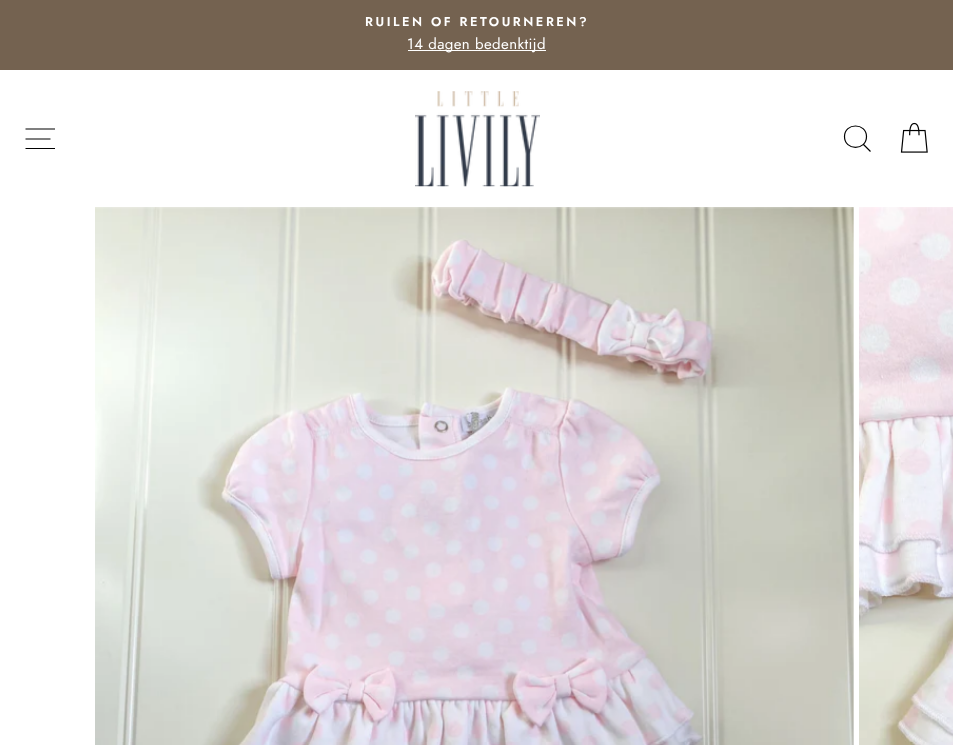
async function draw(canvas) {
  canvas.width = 953
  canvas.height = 745
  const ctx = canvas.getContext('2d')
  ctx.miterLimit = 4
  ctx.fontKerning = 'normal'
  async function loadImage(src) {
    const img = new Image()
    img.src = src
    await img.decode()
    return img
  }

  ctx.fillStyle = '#fff'
  ctx.fillRect(0, 0, 953, 745)
  ctx.fillStyle = '#746250'
  ctx.fillRect(0, 0, 953, 70)
  ctx.letterSpacing = '2.55px'
  ctx.font = '600 12.75px Jost'
  ctx.fillStyle = '#fff'
  ctx.fillText('RUILEN OF RETOURNEREN?', 365, 26)
  ctx.fillRect(408, 50, 138, 1)
  ctx.letterSpacing = '0.4px'
  ctx.font = '15px Jost'
  ctx.fillText('14 dagen bedenktijd', 407, 49)
  ctx.fillStyle = '#00000033'
  ctx.filter = 'blur(0.5px)'
  ctx.beginPath()
  ctx.rect(0, 70, 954, 138)
  ctx.fill()
  ctx.filter = 'none'
  ctx.fillStyle = '#fff'
  ctx.fillRect(0, 70, 953, 138)
  ctx.beginPath()
  ctx.moveTo(25.5, 129)
  ctx.lineTo(55, 129)
  ctx.moveTo(25.5, 139)
  ctx.lineTo(50.5, 139)
  ctx.moveTo(25.5, 148.5)
  ctx.lineTo(55, 148.5)
  ctx.strokeStyle = '#000'
  ctx.lineWidth = 1.2
  ctx.stroke()
  ctx.drawImage(await loadImage('image0.png'), 415, 91, 125, 96)
  ctx.beginPath()
  ctx.moveTo(866.5, 136.5)
  ctx.bezierCurveTo(866.5, 151, 844.5, 151, 844.5, 136.5)
  ctx.bezierCurveTo(844.5, 122.5, 866.5, 122.5, 866.5, 136.5)
  ctx.closePath()
  ctx.moveTo(870.5, 151.5)
  ctx.lineTo(863.5, 144.5)
  ctx.stroke()
  ctx.drawImage(await loadImage('image1.png'), 900, 122, 28, 31)
  ctx.fillRect(0, 208, 90, 1)
  ctx.fillRect(95, 208, 759, 1)
  ctx.drawImage(await loadImage('image2.png'), 95, 207, 759, 538)
  ctx.drawImage(await loadImage('image3.png'), 859, 207, 94, 538)
}

draw(document.querySelector('canvas'))
